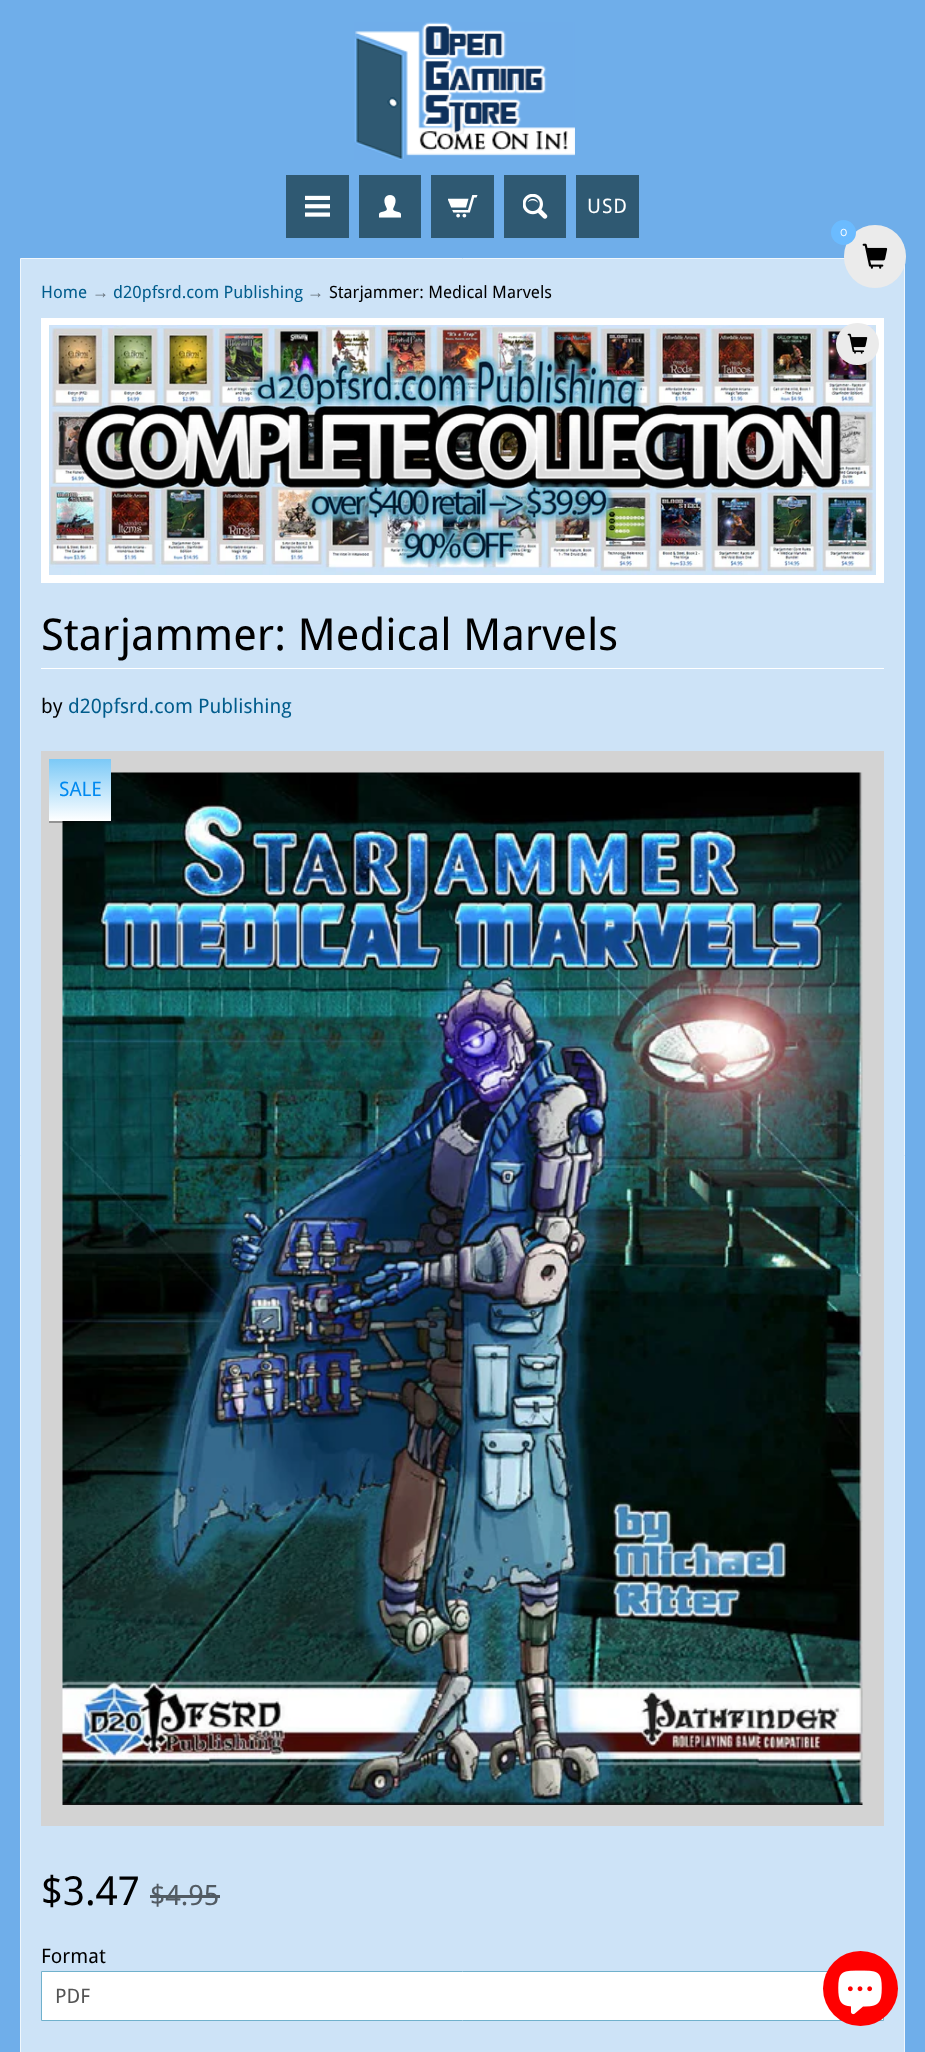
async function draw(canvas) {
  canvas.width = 925
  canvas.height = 2052
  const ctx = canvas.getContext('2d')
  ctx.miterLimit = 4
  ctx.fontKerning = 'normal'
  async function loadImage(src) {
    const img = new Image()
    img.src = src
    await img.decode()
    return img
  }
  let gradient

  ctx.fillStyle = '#6faeea'
  ctx.fillRect(0, 0, 925, 2052)
  ctx.drawImage(await loadImage('image0.png'), 354, 22, 221, 138)
  ctx.fillStyle = '#2f5972'
  ctx.fillRect(286, 175, 63, 63)
  ctx.drawImage(await loadImage('image1.png'), 305, 195, 25, 22)
  ctx.fillRect(359, 175, 62, 63)
  ctx.drawImage(await loadImage('image2.png'), 379, 195, 22, 23)
  ctx.fillRect(431, 175, 63, 63)
  ctx.drawImage(await loadImage('image3.png'), 448, 195, 30, 23)
  ctx.fillRect(504, 175, 62, 63)
  ctx.drawImage(await loadImage('image4.png'), 523, 194, 25, 25)
  ctx.fillRect(576, 175, 63, 63)
  ctx.letterSpacing = '1px'
  ctx.font = '20px Droid Sans'
  ctx.fillStyle = '#fff'
  ctx.fillText('USD', 587, 213)
  ctx.fillStyle = '#cde3f7'
  ctx.beginPath()
  ctx.rect(20.5, 258.5, 884, 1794)
  ctx.fill()
  ctx.strokeStyle = '#f0f7fd'
  ctx.stroke()
  ctx.letterSpacing = '0px'
  ctx.font = '17px Droid Sans'
  ctx.fillStyle = '#005c8c'
  ctx.fillText('Home', 41, 298)
  ctx.font = '17px Liberation Sans'
  ctx.fillStyle = '#67727c'
  ctx.fillText('→', 92, 298)
  ctx.font = '17px Droid Sans'
  ctx.fillStyle = '#005c8c'
  ctx.fillText('d20pfsrd.com Publishing', 113, 298)
  ctx.font = '17px Liberation Sans'
  ctx.fillStyle = '#67727c'
  ctx.fillText('→', 307, 298)
  ctx.font = '17px Droid Sans'
  ctx.fillStyle = '#000'
  ctx.fillText('Starjammer: Medical Marvels', 329, 298)
  ctx.fillStyle = '#fff'
  ctx.fillRect(41, 318, 843, 265)
  ctx.drawImage(await loadImage('image6.png'), 49, 325, 827, 250)
  ctx.fillStyle = '#ebebeb'
  ctx.beginPath()
  ctx.roundRect(836, 323, 43, 42, 21)
  ctx.fill()
  ctx.drawImage(await loadImage('image5.png'), 847, 333, 21, 21)
  ctx.fillStyle = '#fff'
  ctx.fillRect(41, 668, 843, 1)
  ctx.font = '44px Droid Sans'
  ctx.fillStyle = '#000'
  ctx.fillText('Starjammer: Medical Marvels', 41, 650)
  ctx.font = '20px Droid Sans'
  ctx.fillText('by', 41, 713)
  ctx.fillStyle = '#005c8c'
  ctx.fillText('d20pfsrd.com Publishing', 68, 713)
  ctx.fillStyle = '#d3d3d3'
  ctx.fillRect(41, 751, 843, 1075)
  ctx.drawImage(await loadImage('image7.png'), 62, 772, 801, 1033)
  ctx.fillStyle = '#0000004d'
  ctx.filter = 'blur(0.5px)'
  ctx.beginPath()
  ctx.rect(49, 760, 62, 63)
  ctx.fill()
  ctx.filter = 'none'
  gradient = ctx.createLinearGradient(80, 759, 80, 821)
  gradient.addColorStop(0, '#7bc9f7')
  gradient.addColorStop(1, '#fff')
  ctx.fillStyle = gradient
  ctx.fillRect(49, 759, 62, 62)
  ctx.fillStyle = '#0089f0'
  ctx.fillText('SALE', 59, 796)
  ctx.font = '40px Droid Sans'
  ctx.fillStyle = '#000'
  ctx.fillText('$3.47', 41, 1905)
  ctx.font = '28px Droid Sans'
  ctx.fillStyle = '#525b63'
  ctx.fillText('$4.95', 150, 1905)
  ctx.fillRect(150, 1895, 70, 3)
  ctx.font = '20px Droid Sans'
  ctx.fillStyle = '#000'
  ctx.fillText('Format', 41, 1963)
  ctx.fillStyle = '#fff'
  ctx.beginPath()
  ctx.rect(41.5, 1971.5, 842, 49)
  ctx.fill()
  ctx.strokeStyle = '#70b1cc'
  ctx.stroke()
  ctx.fillStyle = '#555'
  ctx.fillText('PDF', 55, 2003)
  ctx.fillStyle = '#ebebeb'
  ctx.beginPath()
  ctx.roundRect(844, 225, 62, 63, 31)
  ctx.fill()
  ctx.fillStyle = '#6bbbff'
  ctx.beginPath()
  ctx.arc(843.5, 232.5, 12.5, 0, 2 * Math.PI)
  ctx.fill()
  ctx.font = '100 12px Raleway'
  ctx.fillStyle = '#fff'
  ctx.fillText('0', 840, 236)
  ctx.drawImage(await loadImage('image8.png'), 862, 243, 26, 26)
  ctx.fillStyle = '#f00'
  ctx.beginPath()
  ctx.arc(860.5, 1988.5, 37.5, 0, 2 * Math.PI)
  ctx.fill()
  ctx.drawImage(await loadImage('image9.png'), 838, 1970, 44, 45)
}

draw(document.querySelector('canvas'))
